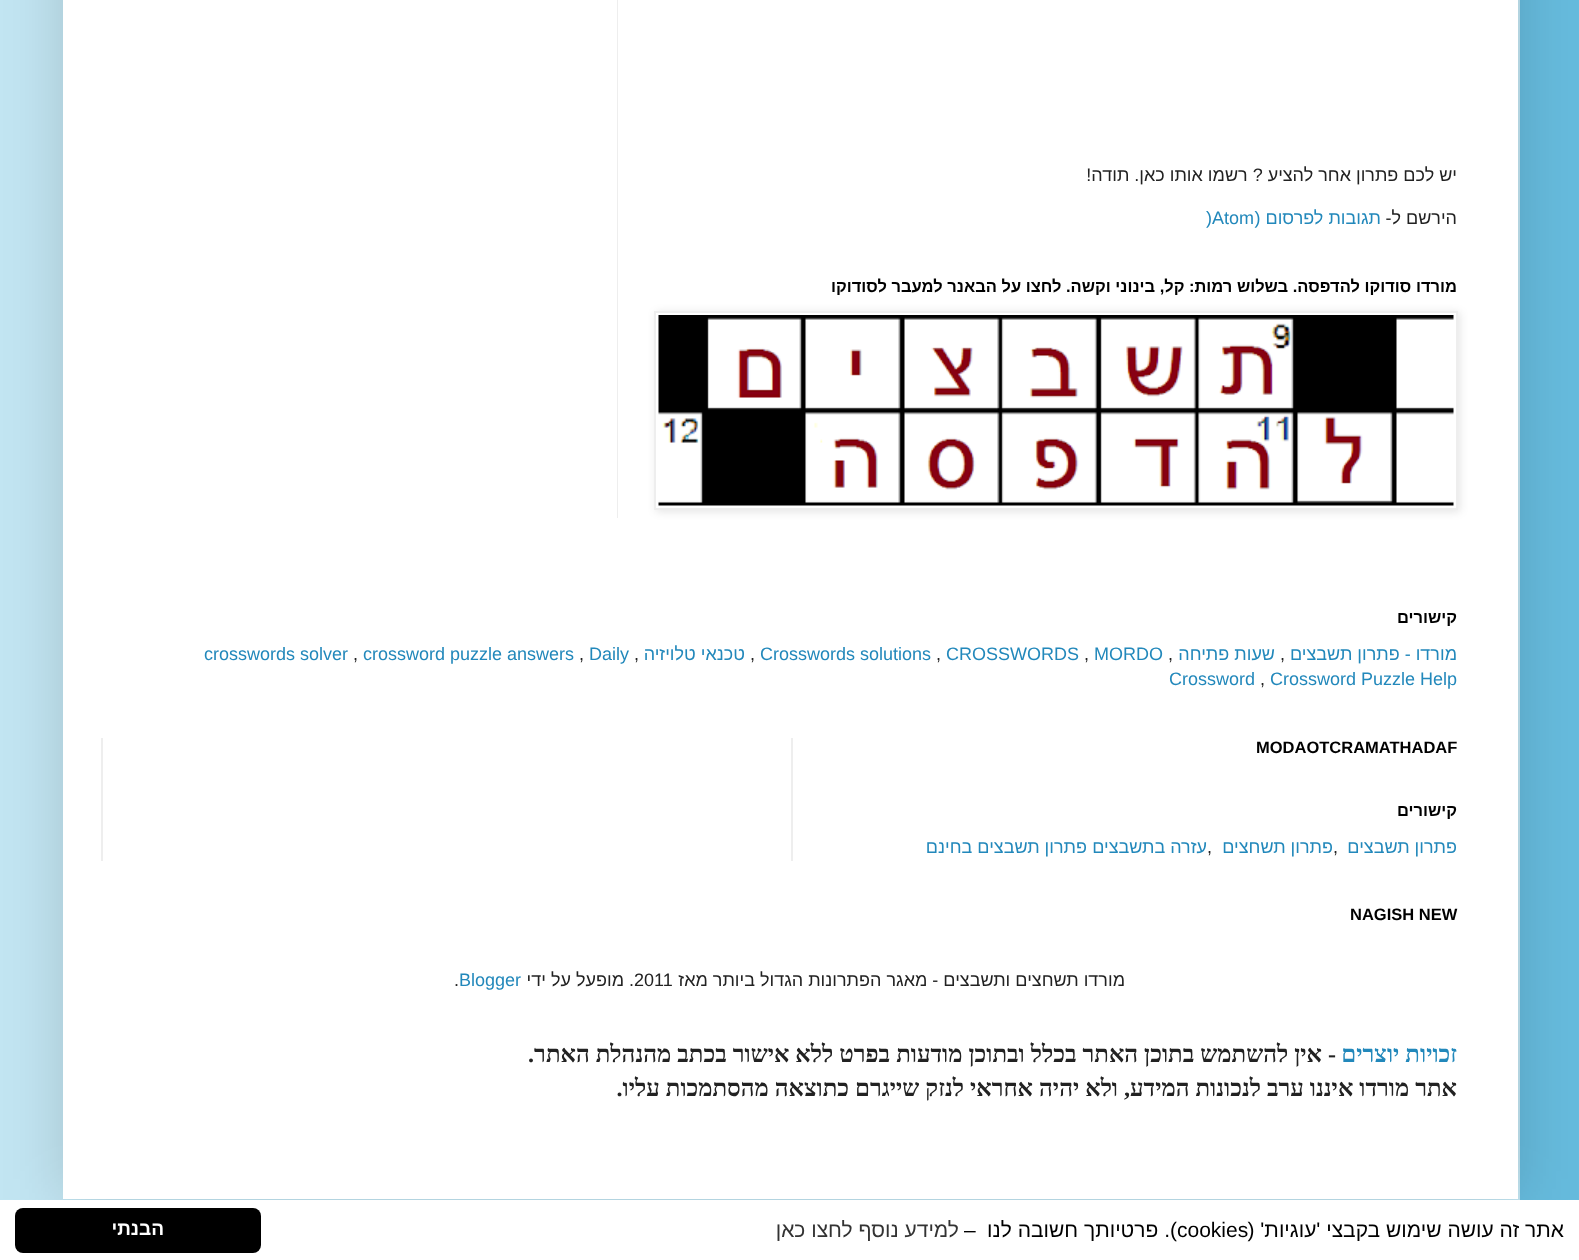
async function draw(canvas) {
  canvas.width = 1579
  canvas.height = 1260
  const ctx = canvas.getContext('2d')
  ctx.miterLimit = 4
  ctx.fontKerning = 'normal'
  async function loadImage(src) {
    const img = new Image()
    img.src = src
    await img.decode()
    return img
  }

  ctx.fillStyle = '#6bd'
  ctx.fillRect(0, 0, 1579, 1260)
  ctx.fillStyle = '#c2e5f2'
  ctx.fillRect(0, 0, 1520, 1200)
  ctx.fillStyle = '#00000026'
  ctx.filter = 'blur(30px)'
  ctx.beginPath()
  ctx.rect(63, -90, 1455, 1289)
  ctx.fill()
  ctx.filter = 'none'
  ctx.fillStyle = '#fff'
  ctx.fillRect(63, 0, 1455, 1199)
  ctx.direction = 'rtl'
  ctx.font = '18px Liberation Sans'
  ctx.fillStyle = '#222'
  ctx.fillText('יש לכם פתרון אחר להציע ? רשמו אותו כאן. תודה!', 1457, 181)
  ctx.fillText('הירשם ל-', 1457, 224)
  ctx.fillStyle = '#28b'
  ctx.fillText('תגובות לפרסום (', 1381, 224)
  ctx.direction = 'ltr'
  ctx.fillText(')Atom', 1206, 224)
  ctx.direction = 'rtl'
  ctx.font = 'bold 16.5px Liberation Sans'
  ctx.fillStyle = '#000'
  ctx.fillText('מורדו סודוקו להדפסה. בשלוש רמות: קל, בינוני וקשה. לחצו על הבאנר למעבר לסודוקו', 1457, 292)
  ctx.save()
  ctx.beginPath()
  ctx.moveTo(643, 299)
  ctx.lineTo(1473, 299)
  ctx.lineTo(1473, 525)
  ctx.lineTo(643, 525)
  ctx.closePath()
  ctx.moveTo(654, 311)
  ctx.lineTo(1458, 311)
  ctx.lineTo(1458, 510)
  ctx.lineTo(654, 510)
  ctx.closePath()
  ctx.clip('evenodd')
  ctx.fillStyle = '#0000001a'
  ctx.filter = 'blur(4px)'
  ctx.beginPath()
  ctx.rect(656, 312, 804, 200)
  ctx.fill()
  ctx.filter = 'none'
  ctx.restore()
  ctx.strokeStyle = '#eee'
  ctx.lineWidth = 2
  ctx.strokeRect(655, 312, 802, 197)
  ctx.drawImage(await loadImage('image0.png'), 658, 315, 796, 191)
  ctx.fillStyle = '#eee'
  ctx.fillRect(617, 0, 1, 518)
  ctx.fillStyle = '#000'
  ctx.fillText('קישורים', 1457, 623)
  ctx.font = '18px Liberation Sans'
  ctx.fillStyle = '#28b'
  ctx.fillText('מורדו - פתרון תשבצים', 1457, 660)
  ctx.direction = 'ltr'
  ctx.fillStyle = '#222'
  ctx.fillText(',', 1280, 660)
  ctx.direction = 'rtl'
  ctx.fillStyle = '#28b'
  ctx.fillText('שעות פתיחה', 1275, 660)
  ctx.direction = 'ltr'
  ctx.fillStyle = '#222'
  ctx.fillText(',', 1168, 660)
  ctx.fillStyle = '#28b'
  ctx.fillText('MORDO', 1094, 660)
  ctx.fillStyle = '#222'
  ctx.fillText(',', 1084, 660)
  ctx.fillStyle = '#28b'
  ctx.fillText('CROSSWORDS', 946, 660)
  ctx.fillStyle = '#222'
  ctx.fillText(',', 936, 660)
  ctx.fillStyle = '#28b'
  ctx.fillText('Crosswords solutions', 760, 660)
  ctx.fillStyle = '#222'
  ctx.fillText(',', 750, 660)
  ctx.direction = 'rtl'
  ctx.fillStyle = '#28b'
  ctx.fillText('טכנאי טלויזיה', 745, 660)
  ctx.direction = 'ltr'
  ctx.fillStyle = '#222'
  ctx.fillText(',', 634, 660)
  ctx.fillStyle = '#28b'
  ctx.fillText('Daily', 589, 660)
  ctx.fillStyle = '#222'
  ctx.fillText(',', 579, 660)
  ctx.fillStyle = '#28b'
  ctx.fillText('crossword puzzle answers', 363, 660)
  ctx.fillStyle = '#222'
  ctx.fillText(',', 353, 660)
  ctx.fillStyle = '#28b'
  ctx.fillText('crosswords solver', 204, 660)
  ctx.fillText('Crossword Puzzle Help', 1270, 685)
  ctx.fillStyle = '#222'
  ctx.fillText(',', 1260, 685)
  ctx.fillStyle = '#28b'
  ctx.fillText('Crossword', 1169, 685)
  ctx.fillStyle = '#eee'
  ctx.fillRect(791, 738, 2, 123)
  ctx.font = 'bold 16.5px Liberation Sans'
  ctx.fillStyle = '#000'
  ctx.fillText('MODAOTCRAMATHADAF', 1256, 753)
  ctx.direction = 'rtl'
  ctx.fillText('קישורים', 1457, 816)
  ctx.font = '18px Liberation Sans'
  ctx.fillStyle = '#28b'
  ctx.fillText('פתרון תשבצים', 1457, 853)
  ctx.direction = 'ltr'
  ctx.fillStyle = '#222'
  ctx.fillText(',', 1333, 853)
  ctx.direction = 'rtl'
  ctx.fillStyle = '#28b'
  ctx.fillText('פתרון תשחצים', 1333, 853)
  ctx.direction = 'ltr'
  ctx.fillStyle = '#222'
  ctx.fillText(',', 1207, 853)
  ctx.direction = 'rtl'
  ctx.fillStyle = '#28b'
  ctx.fillText('עזרה בתשבצים', 1207, 853)
  ctx.fillText('פתרון תשבצים בחינם', 1087, 853)
  ctx.fillStyle = '#eee'
  ctx.fillRect(101, 738, 2, 123)
  ctx.direction = 'ltr'
  ctx.font = 'bold 16.5px Liberation Sans'
  ctx.fillStyle = '#000'
  ctx.fillText('NAGISH NEW', 1350, 920)
  ctx.direction = 'rtl'
  ctx.font = '18px Liberation Sans'
  ctx.fillStyle = '#222'
  ctx.fillText('מורדו תשחצים ותשבצים - מאגר הפתרונות הגדול ביותר מאז', 1125, 986)
  ctx.direction = 'ltr'
  ctx.fillText('2011', 634, 986)
  ctx.direction = 'rtl'
  ctx.fillText('. מופעל על ידי', 634, 986)
  ctx.direction = 'ltr'
  ctx.fillStyle = '#28b'
  ctx.fillText('Blogger', 459, 986)
  ctx.fillStyle = '#222'
  ctx.fillText('.', 454, 986)
  ctx.direction = 'rtl'
  ctx.font = 'bold 24px Liberation Serif'
  ctx.fillStyle = '#28b'
  ctx.fillText('זכויות יוצרים', 1457, 1062)
  ctx.fillStyle = '#222'
  ctx.fillText('- אין להשתמש בתוכן האתר בכלל ובתוכן מודעות בפרט ללא אישור בכתב מהנהלת האתר.', 1336, 1062)
  ctx.fillText('אתר מורדו איננו ערב לנכונות המידע, ולא יהיה אחראי לנזק שייגרם כתוצאה מהסתמכות עליו.', 1457, 1096)
  ctx.fillStyle = '#fff'
  ctx.fillRect(0, 1200, 1579, 60)
  ctx.font = '21px Liberation Sans'
  ctx.fillStyle = '#000'
  ctx.fillText('אתר זה עושה שימוש בקבצי \'עוגיות\' (', 1564, 1237)
  ctx.direction = 'ltr'
  ctx.fillText('cookies', 1177, 1237)
  ctx.direction = 'rtl'
  ctx.fillText('). פרטיותך חשובה לנו', 1177, 1237)
  ctx.direction = 'ltr'
  ctx.fillText('–', 964, 1237)
  ctx.direction = 'rtl'
  ctx.fillStyle = '#333'
  ctx.fillText('למידע נוסף לחצו כאן', 959, 1237)
  ctx.fillStyle = '#000'
  ctx.beginPath()
  ctx.roundRect(15, 1208, 246, 45, 8)
  ctx.fill()
  ctx.font = 'bold 19px Liberation Sans'
  ctx.fillStyle = '#fff'
  ctx.fillText('הבנתי', 164, 1235)
}

draw(document.querySelector('canvas'))
